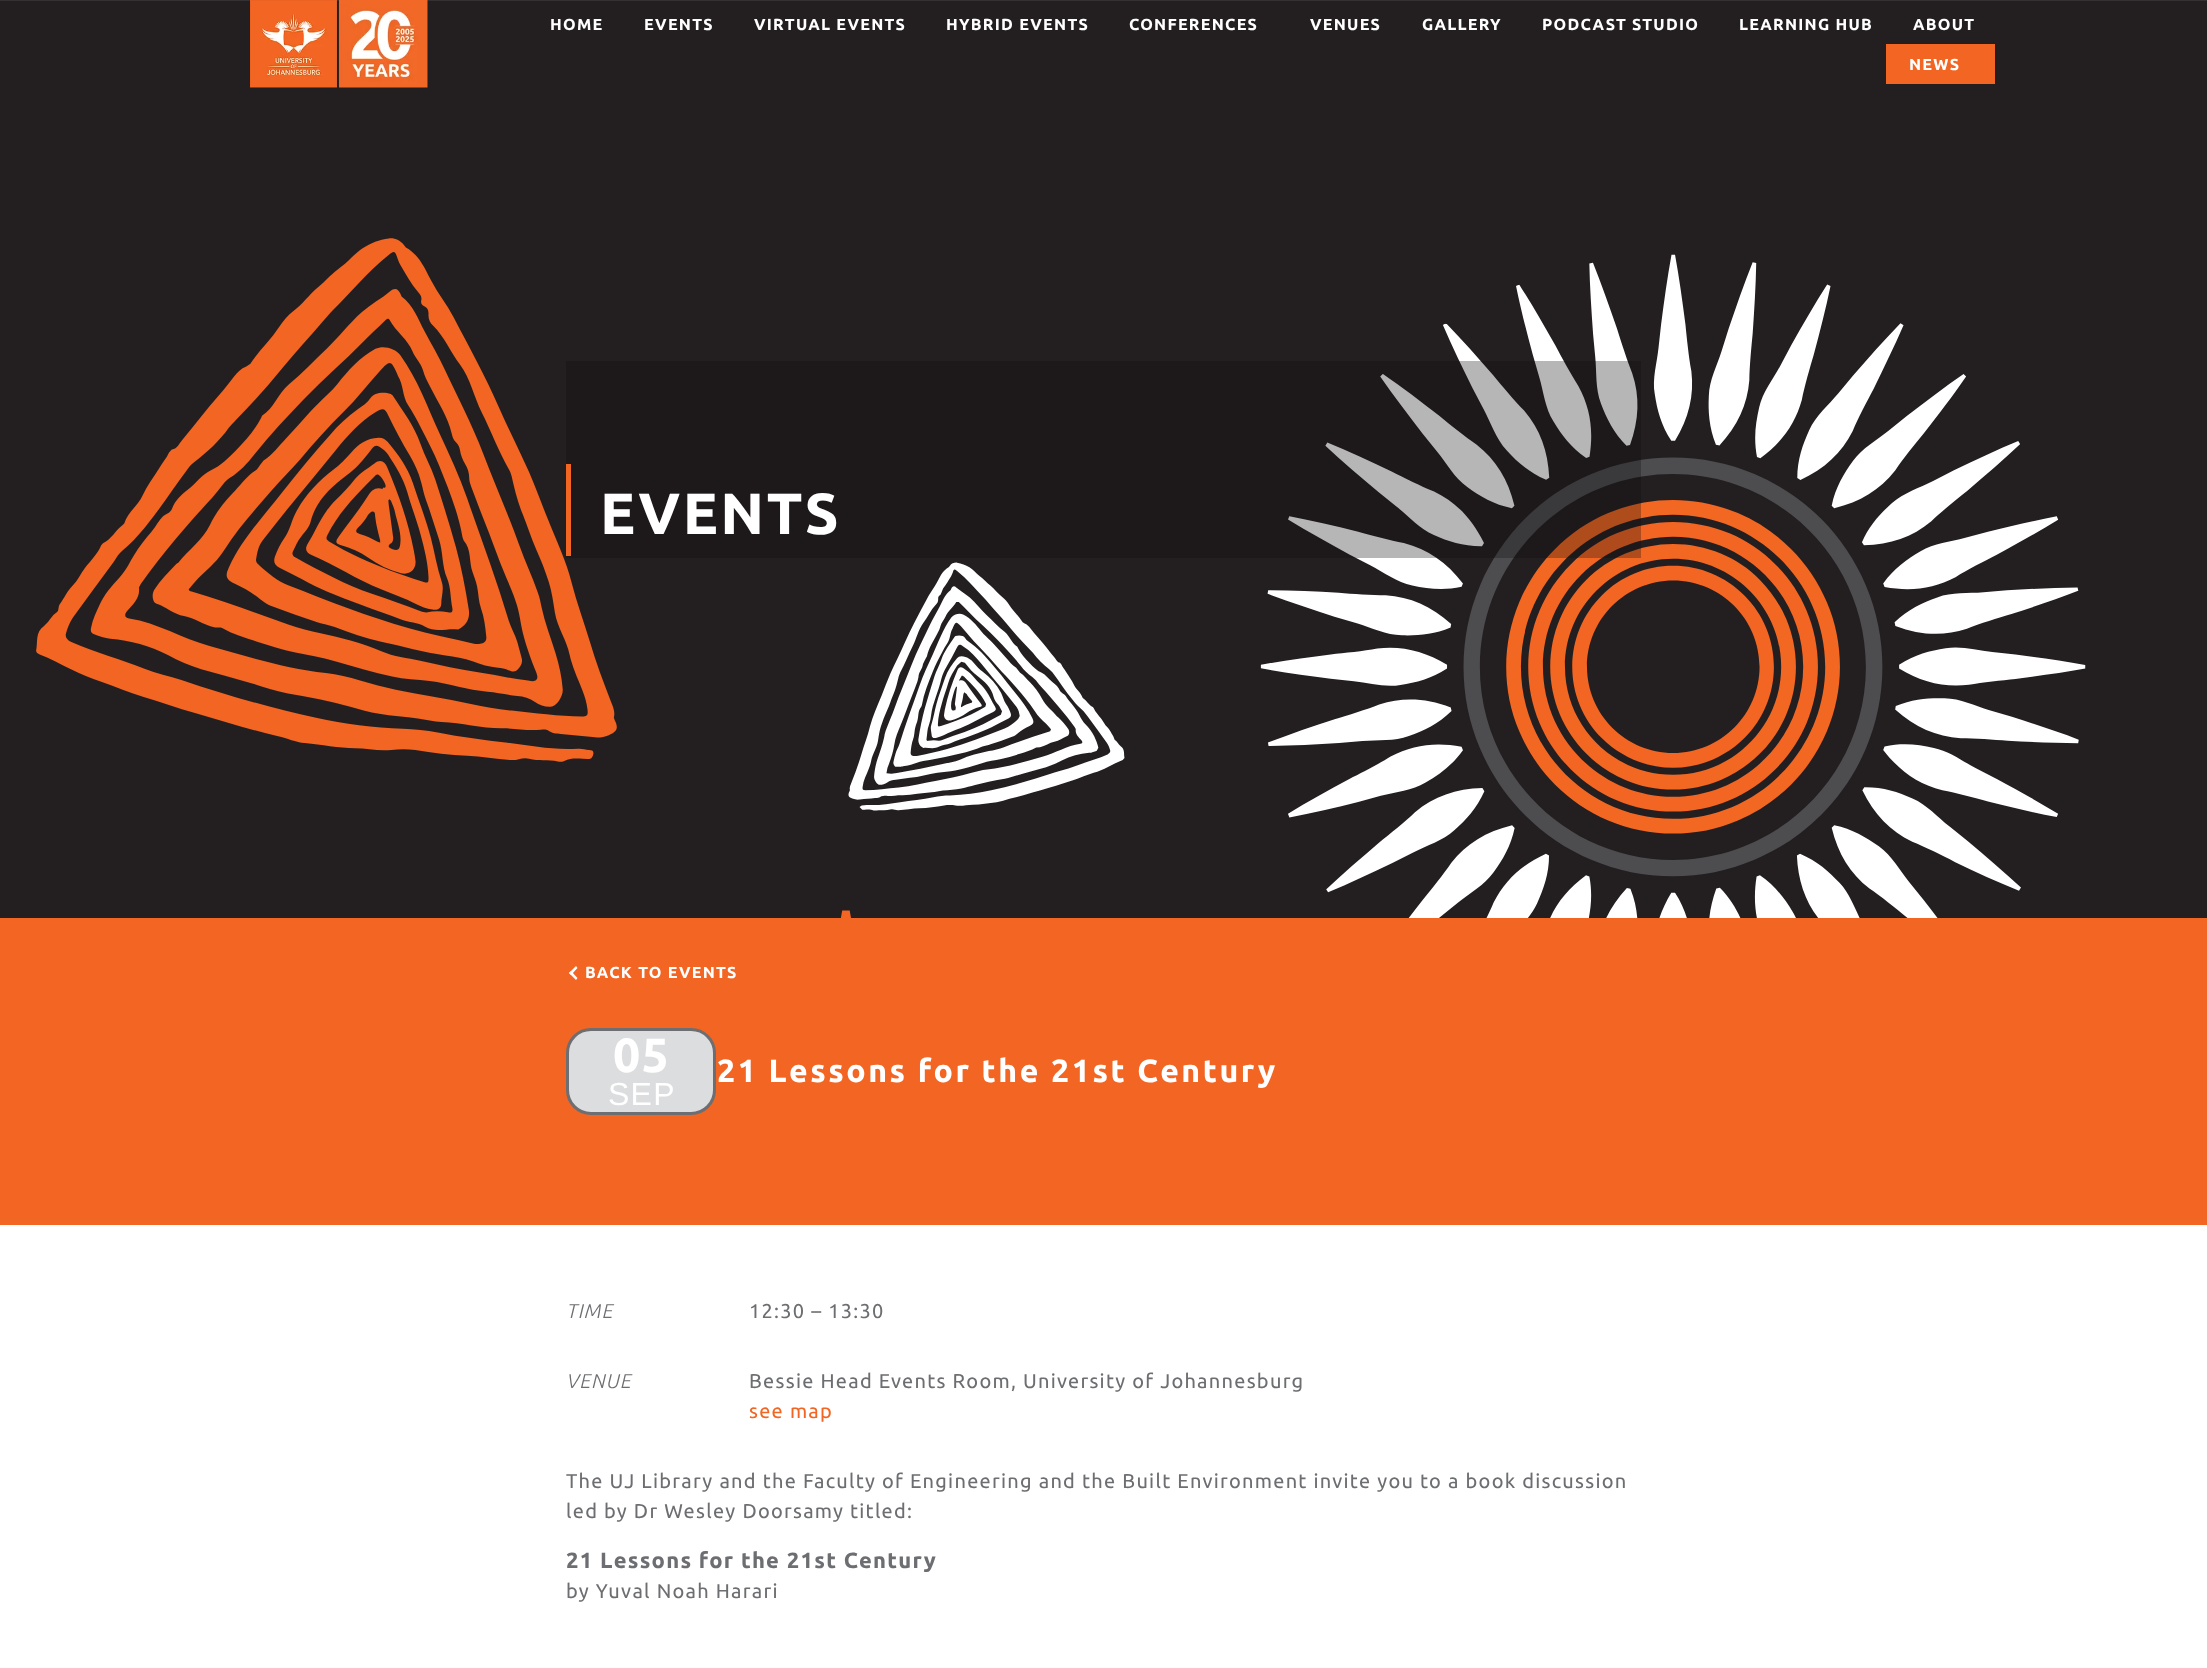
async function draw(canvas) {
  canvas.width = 2207
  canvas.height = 1668
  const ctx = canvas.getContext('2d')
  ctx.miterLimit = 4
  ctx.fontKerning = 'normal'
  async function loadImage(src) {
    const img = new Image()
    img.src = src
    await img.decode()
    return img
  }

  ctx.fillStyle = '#fff'
  ctx.fillRect(0, 0, 2207, 1668)
  ctx.drawImage(await loadImage('image1.png'), 0, 0, 2207, 918)
  ctx.drawImage(await loadImage('image0.png'), 250, 0, 178, 88)
  ctx.letterSpacing = '1.25px'
  ctx.font = 'bold 16px Ubuntu'
  ctx.fillText('HOME', 550, 30)
  ctx.fillText('EVENTS', 644, 30)
  ctx.fillText('VIRTUAL EVENTS', 754, 30)
  ctx.fillText('HYBRID EVENTS', 946, 30)
  ctx.fillText('CONFERENCES', 1129, 30)
  ctx.fillText('VENUES', 1310, 30)
  ctx.fillText('GALLERY', 1422, 30)
  ctx.fillText('PODCAST STUDIO', 1542, 30)
  ctx.fillText('LEARNING HUB', 1739, 30)
  ctx.fillText('ABOUT', 1913, 30)
  ctx.fillStyle = '#f26522'
  ctx.fillRect(1886, 44, 109, 40)
  ctx.fillStyle = '#fff'
  ctx.fillText('NEWS', 1909, 70)
  ctx.fillStyle = '#0f0c0c4d'
  ctx.fillRect(566, 361, 1075, 197)
  ctx.fillStyle = '#f26522'
  ctx.fillRect(566, 464, 5, 92)
  ctx.letterSpacing = '2.5px'
  ctx.font = 'bold 58px Ubuntu'
  ctx.fillStyle = '#fff'
  ctx.fillText('EVENTS', 600, 534)
  ctx.fillStyle = '#f26522'
  ctx.fillRect(0, 918, 2207, 307)
  ctx.fillStyle = '#fff'
  ctx.beginPath()
  ctx.moveTo(576, 980)
  ctx.lineTo(569, 973)
  ctx.lineTo(571, 971)
  ctx.lineTo(577.5, 978)
  ctx.closePath()
  ctx.fill()
  ctx.beginPath()
  ctx.moveTo(571, 975)
  ctx.lineTo(569, 973)
  ctx.lineTo(576, 966)
  ctx.lineTo(577.5, 968)
  ctx.closePath()
  ctx.fill()
  ctx.letterSpacing = '1.25px'
  ctx.font = 'bold 16px Ubuntu'
  ctx.fillText('BACK TO EVENTS', 585, 978)
  ctx.fillStyle = '#dcddde'
  ctx.beginPath()
  ctx.roundRect(567.5, 1029.5, 147, 84, 23.5)
  ctx.fill()
  ctx.strokeStyle = '#6d6e71'
  ctx.lineWidth = 3
  ctx.stroke()
  ctx.font = 'bold 48px Ubuntu'
  ctx.fillStyle = '#fff'
  ctx.fillText('05', 613, 1072)
  ctx.font = '32px Liberation Sans'
  ctx.fillText('SEP', 608, 1105)
  ctx.letterSpacing = '2.5px'
  ctx.font = 'bold 32px Ubuntu'
  ctx.fillText('21 Lessons for the 21st Century', 717, 1082)
  ctx.letterSpacing = '1.25px'
  ctx.font = 'italic 300 20px Ubuntu'
  ctx.fillStyle = '#6d6e71'
  ctx.fillText('TIME', 566, 1318)
  ctx.font = '20px Ubuntu'
  ctx.fillText('12:30 – 13:30', 749, 1318)
  ctx.font = 'italic 300 20px Ubuntu'
  ctx.fillText('VENUE', 566, 1388)
  ctx.font = '20px Ubuntu'
  ctx.fillText('Bessie Head Events Room, University of Johannesburg', 749, 1388)
  ctx.fillStyle = '#f26522'
  ctx.fillText('see map', 749, 1418)
  ctx.fillStyle = '#6d6e71'
  ctx.fillText('The UJ Library and the Faculty of Engineering and the Built Environment invite you to a book discussion', 566, 1488)
  ctx.fillText('led by Dr Wesley Doorsamy titled:', 566, 1518)
  ctx.font = 'bold 22px Ubuntu'
  ctx.fillText('21 Lessons for the 21st Century', 566, 1568)
  ctx.font = '20px Ubuntu'
  ctx.fillText('by Yuval Noah Harari', 566, 1598)
}

draw(document.querySelector('canvas'))
